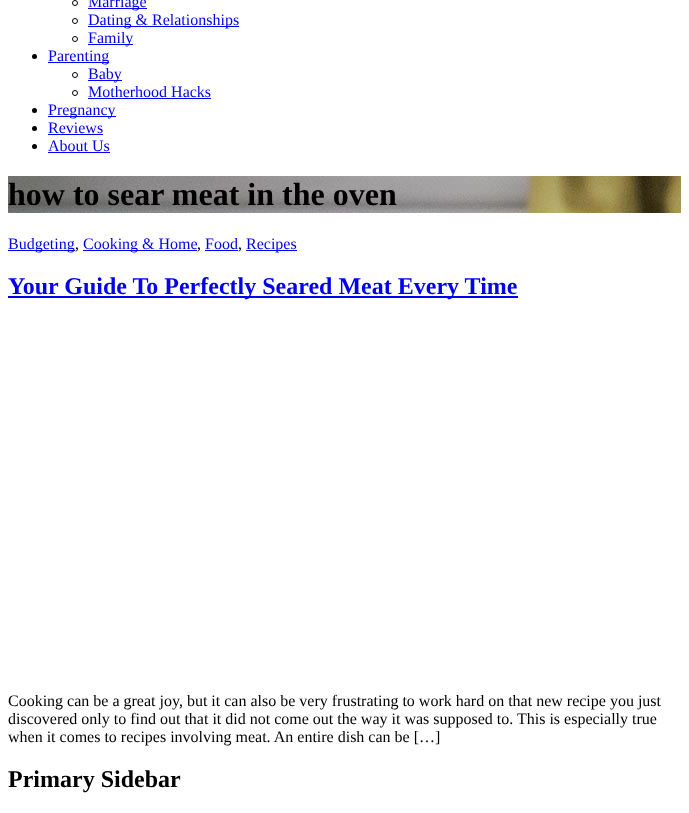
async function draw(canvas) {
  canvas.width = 689
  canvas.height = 813
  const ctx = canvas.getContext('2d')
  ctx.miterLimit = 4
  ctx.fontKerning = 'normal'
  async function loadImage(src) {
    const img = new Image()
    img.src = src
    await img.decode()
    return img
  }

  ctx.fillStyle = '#fff'
  ctx.fillRect(0, 0, 689, 813)
  ctx.beginPath()
  ctx.arc(75, 3, 2.5, 0, 2 * Math.PI)
  ctx.strokeStyle = '#000'
  ctx.stroke()
  ctx.fillStyle = '#00e'
  ctx.fillRect(88, 8, 59, 1)
  ctx.font = '16px Liberation Serif'
  ctx.fillText('Marriage', 88, 7)
  ctx.beginPath()
  ctx.arc(75, 21, 2.5, 0, 2 * Math.PI)
  ctx.stroke()
  ctx.fillRect(88, 26, 151, 1)
  ctx.fillText('Dating & Relationships', 88, 25)
  ctx.beginPath()
  ctx.arc(75, 39, 2.5, 0, 2 * Math.PI)
  ctx.stroke()
  ctx.fillRect(88, 44, 45, 1)
  ctx.fillText('Family', 88, 43)
  ctx.fillStyle = '#000'
  ctx.beginPath()
  ctx.arc(34.5, 56.5, 2.5, 0, 2 * Math.PI)
  ctx.fill()
  ctx.fillStyle = '#00e'
  ctx.fillRect(48, 62, 61, 1)
  ctx.fillText('Parenting', 48, 61)
  ctx.beginPath()
  ctx.arc(75, 75, 2.5, 0, 2 * Math.PI)
  ctx.stroke()
  ctx.fillRect(88, 80, 34, 1)
  ctx.fillText('Baby', 88, 79)
  ctx.beginPath()
  ctx.arc(75, 93, 2.5, 0, 2 * Math.PI)
  ctx.stroke()
  ctx.fillText('Motherhood Hacks', 88, 97)
  ctx.fillRect(88, 98, 123, 1)
  ctx.fillStyle = '#000'
  ctx.beginPath()
  ctx.arc(34.5, 110.5, 2.5, 0, 2 * Math.PI)
  ctx.fill()
  ctx.fillStyle = '#00e'
  ctx.fillRect(48, 116, 68, 1)
  ctx.fillText('Pregnancy', 48, 115)
  ctx.fillStyle = '#000'
  ctx.beginPath()
  ctx.arc(34.5, 128.5, 2.5, 0, 2 * Math.PI)
  ctx.fill()
  ctx.fillStyle = '#00e'
  ctx.fillText('Reviews', 48, 133)
  ctx.fillRect(48, 134, 55, 1)
  ctx.fillStyle = '#000'
  ctx.beginPath()
  ctx.arc(34.5, 146.5, 2.5, 0, 2 * Math.PI)
  ctx.fill()
  ctx.fillStyle = '#00e'
  ctx.fillText('About Us', 48, 151)
  ctx.fillRect(48, 152, 62, 1)
  ctx.drawImage(await loadImage('image0.png'), 8, 176, 673, 37)
  ctx.font = 'bold 32px Liberation Serif'
  ctx.fillStyle = '#000'
  ctx.fillText('how to sear meat in the oven', 8, 205)
  ctx.fillStyle = '#00e'
  ctx.fillRect(8, 250, 67, 1)
  ctx.font = '16px Liberation Serif'
  ctx.fillText('Budgeting', 8, 249)
  ctx.fillStyle = '#000'
  ctx.fillText(',', 75, 249)
  ctx.fillStyle = '#00e'
  ctx.fillRect(83, 250, 114, 1)
  ctx.fillText('Cooking & Home', 83, 249)
  ctx.fillStyle = '#000'
  ctx.fillText(',', 197, 249)
  ctx.fillStyle = '#00e'
  ctx.fillText('Food', 205, 249)
  ctx.fillStyle = '#000'
  ctx.fillText(',', 238, 249)
  ctx.fillStyle = '#00e'
  ctx.fillRect(205, 250, 33, 1)
  ctx.fillRect(246, 250, 51, 1)
  ctx.fillText('Recipes', 246, 249)
  ctx.fillRect(8, 296, 510, 2)
  ctx.font = 'bold 24px Liberation Serif'
  ctx.fillText('Your Guide To Perfectly Seared Meat Every Time', 8, 294)
  ctx.font = '16px Liberation Serif'
  ctx.fillStyle = '#000'
  ctx.fillText('Cooking can be a great joy, but it can also be very frustrating to work hard on that new recipe you just', 8, 706)
  ctx.fillText('discovered only to find out that it did not come out the way it was supposed to. This is especially true', 8, 724)
  ctx.fillText('when it comes to recipes involving meat. An entire dish can be […]', 8, 742)
  ctx.font = 'bold 24px Liberation Serif'
  ctx.fillText('Primary Sidebar', 8, 787)
}

draw(document.querySelector('canvas'))
